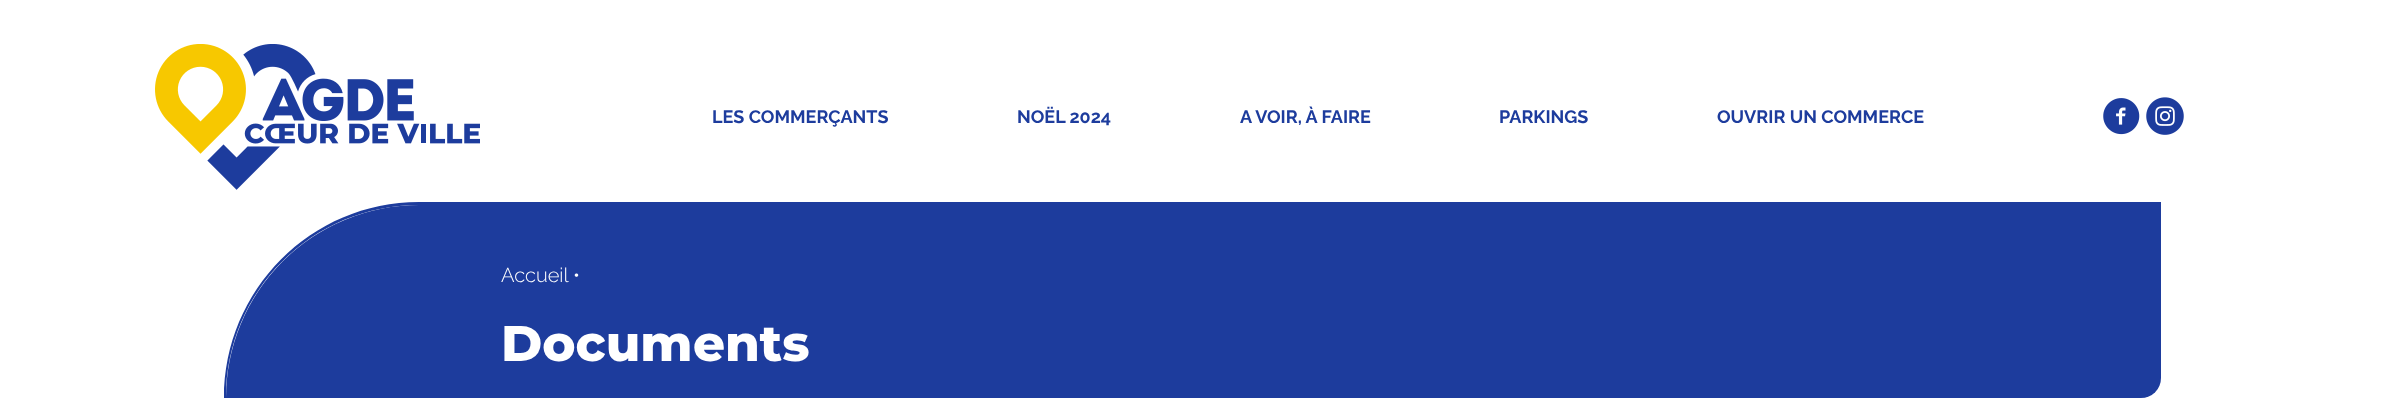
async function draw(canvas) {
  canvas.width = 2384
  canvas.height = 398
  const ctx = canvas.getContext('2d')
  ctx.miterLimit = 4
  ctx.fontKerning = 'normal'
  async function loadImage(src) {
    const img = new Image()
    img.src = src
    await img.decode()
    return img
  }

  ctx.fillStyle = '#fff'
  ctx.fillRect(0, 0, 2384, 398)
  ctx.drawImage(await loadImage('image0.png'), 155, 44, 325, 146)
  ctx.font = 'bold 18px Raleway'
  ctx.fillStyle = '#1d3c9d'
  ctx.fillText('LES COMMERÇANTS', 712, 123)
  ctx.fillText('NOËL 2024', 1017, 123)
  ctx.fillText('A VOIR, À FAIRE', 1240, 123)
  ctx.fillText('PARKINGS', 1499, 123)
  ctx.fillText('OUVRIR UN COMMERCE', 1717, 123)
  ctx.drawImage(await loadImage('image1.png'), 2103, 98, 37, 37)
  ctx.drawImage(await loadImage('image2.png'), 2146, 97, 38, 38)
  ctx.beginPath()
  ctx.roundRect(226, 205, 1935, 193, [193, 0, 20, 0])
  ctx.fill()
  ctx.beginPath()
  ctx.moveTo(419, 202)
  ctx.lineTo(2161, 202)
  ctx.lineTo(2161, 378)
  ctx.bezierCurveTo(2161, 389, 2153, 398, 2142, 398)
  ctx.lineTo(224, 398)
  ctx.bezierCurveTo(224, 290, 311, 202, 419, 202)
  ctx.closePath()
  ctx.moveTo(419, 205)
  ctx.lineTo(2161, 205)
  ctx.lineTo(2161, 378)
  ctx.bezierCurveTo(2161, 389, 2153, 398, 2142, 398)
  ctx.lineTo(226, 398)
  ctx.bezierCurveTo(226, 291, 312, 205, 419, 205)
  ctx.closePath()
  ctx.fill('evenodd')
  ctx.font = '300 20px Raleway'
  ctx.fillStyle = '#fff'
  ctx.fillText('Accueil', 501, 282)
  ctx.fillText('•', 573, 282)
  ctx.font = '800 50px Montserrat'
  ctx.fillText('Documents', 501, 361)
}

draw(document.querySelector('canvas'))
